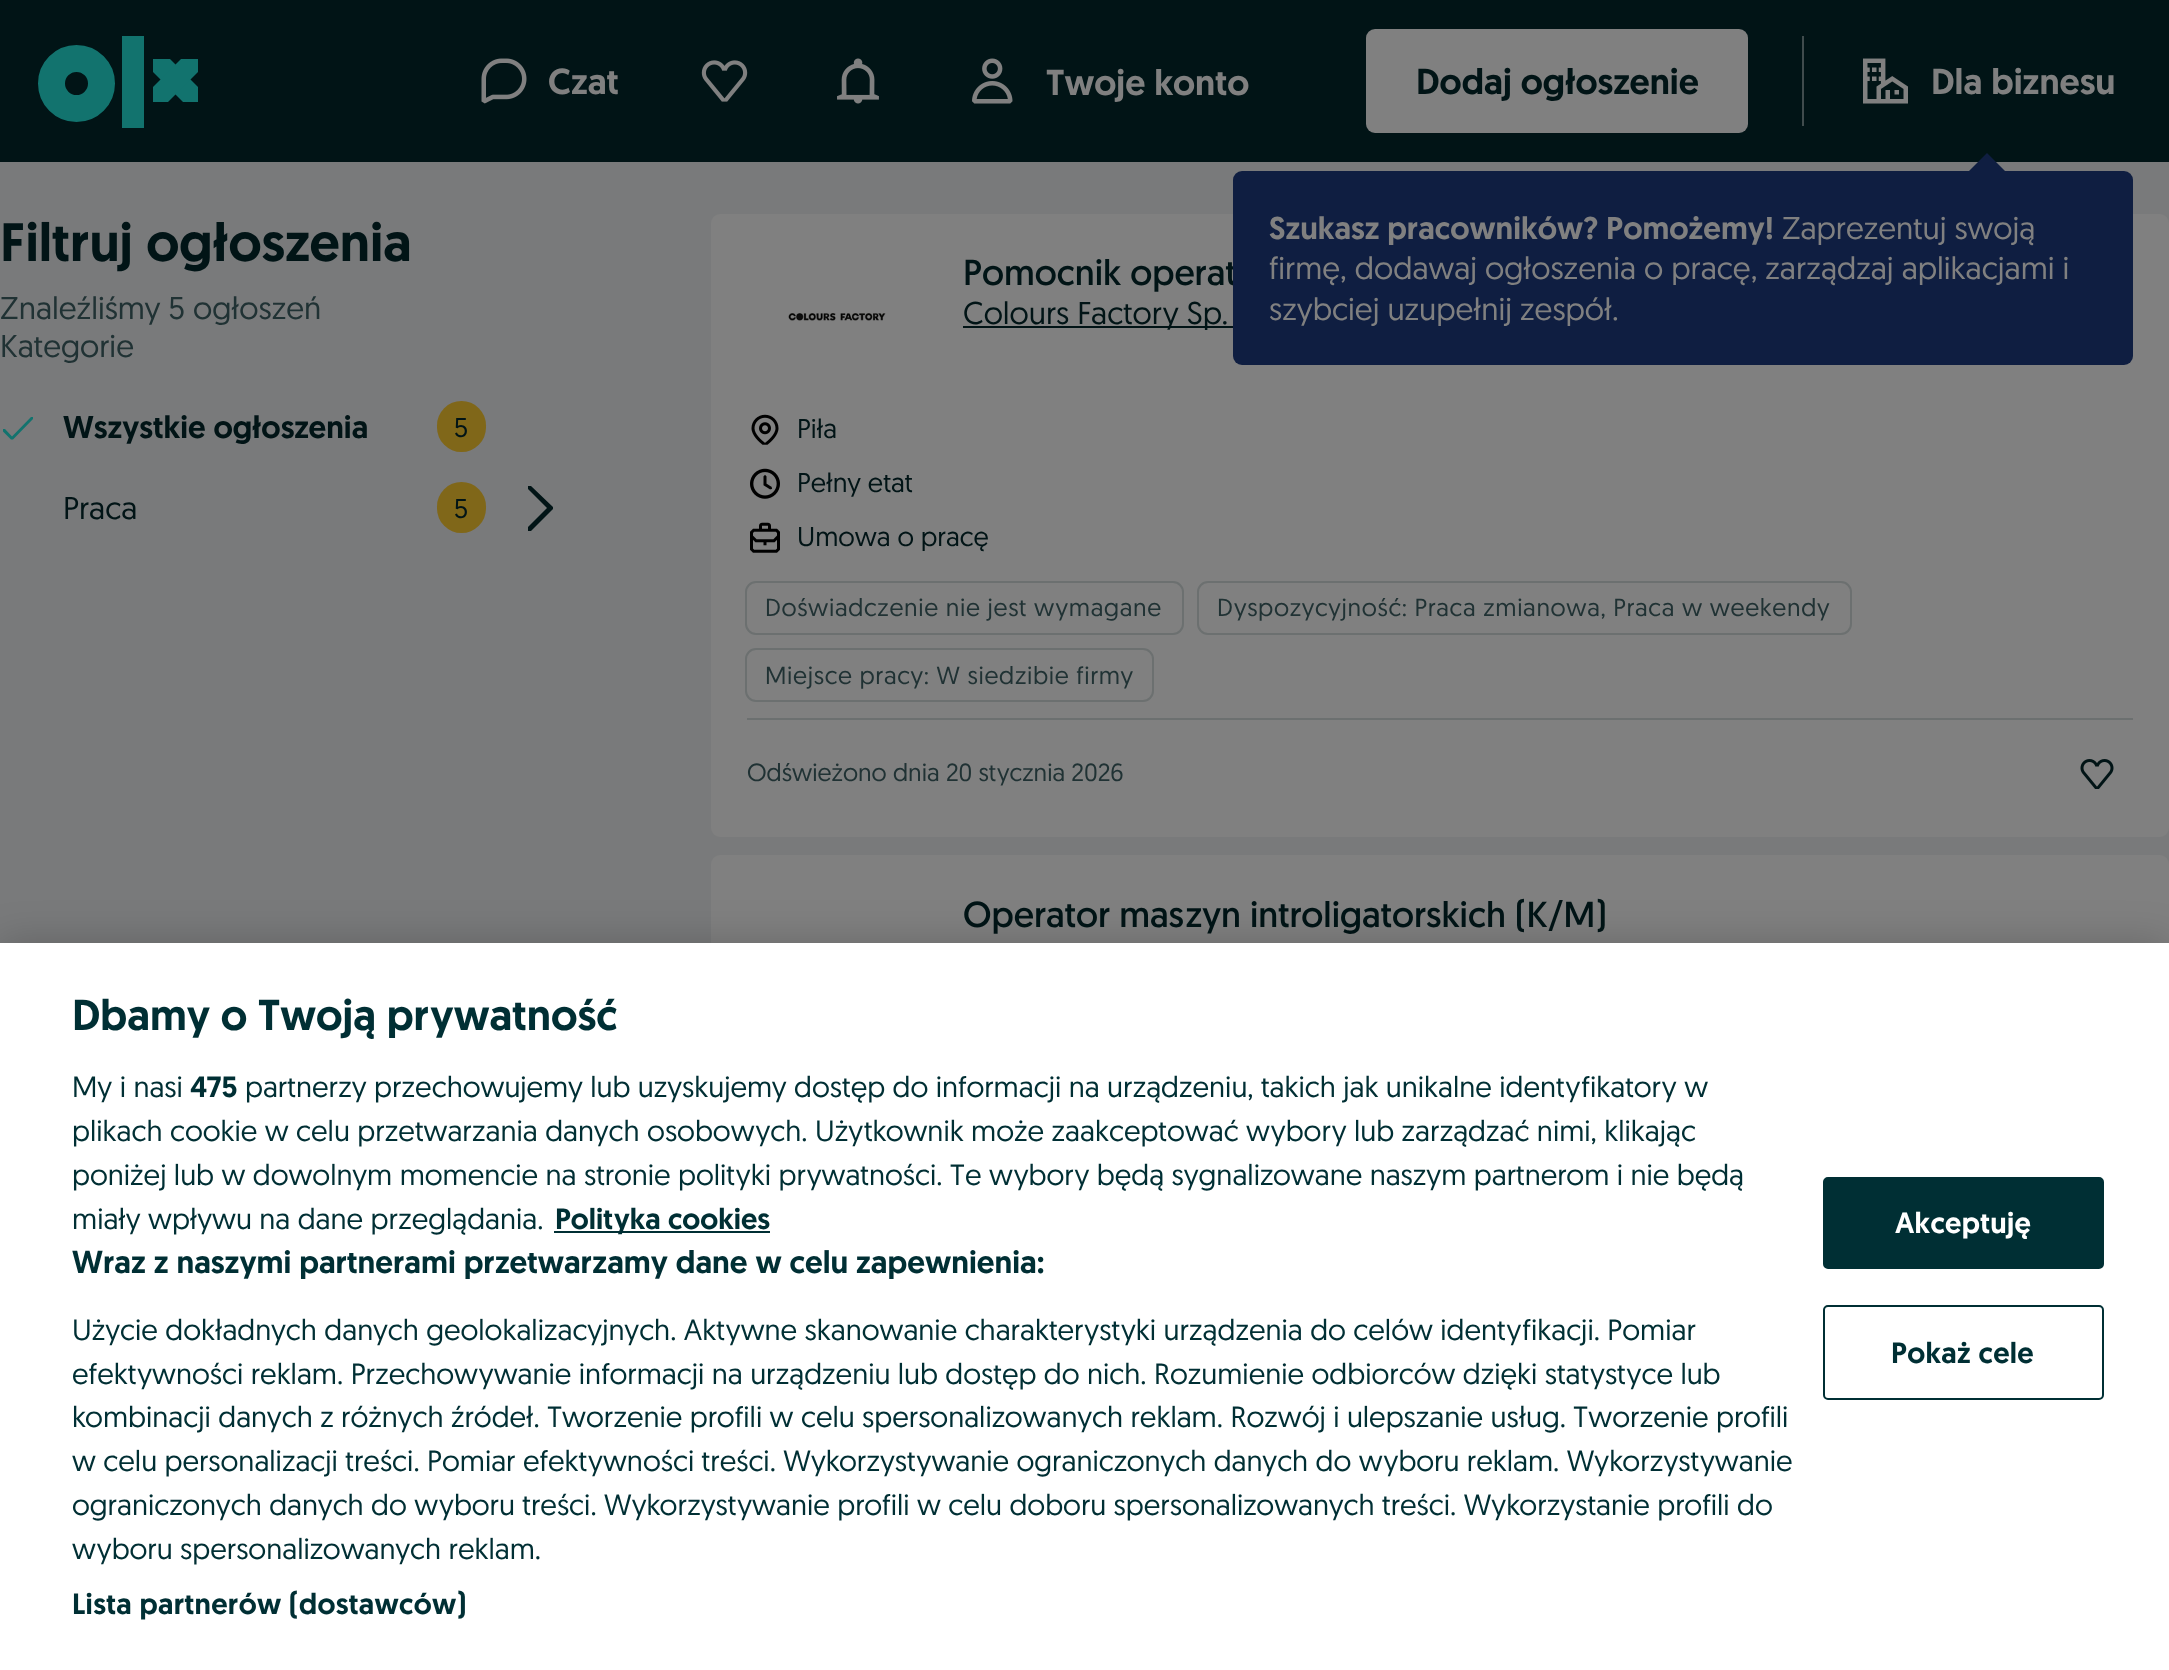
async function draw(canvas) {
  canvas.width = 2169
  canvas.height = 1670
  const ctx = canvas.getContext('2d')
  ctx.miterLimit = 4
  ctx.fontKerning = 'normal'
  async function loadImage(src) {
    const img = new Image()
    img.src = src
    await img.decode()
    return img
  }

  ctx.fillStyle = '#797a7b'
  ctx.fillRect(0, 0, 2169, 1670)
  ctx.fillStyle = '#011416'
  ctx.fillRect(0, 0, 2169, 162)
  ctx.beginPath()
  ctx.arc(76.5, 83.5, 25, 0, 2 * Math.PI)
  ctx.strokeStyle = '#12736e'
  ctx.lineWidth = 27
  ctx.stroke()
  ctx.fillStyle = '#12736e'
  ctx.fillRect(122, 36, 22, 92)
  ctx.save()
  ctx.beginPath()
  ctx.rect(153, 59, 45, 45)
  ctx.clip()
  ctx.beginPath()
  ctx.moveTo(138, 57)
  ctx.lineTo(168, 57)
  ctx.lineTo(213, 102)
  ctx.lineTo(183, 102)
  ctx.closePath()
  ctx.fill()
  ctx.beginPath()
  ctx.moveTo(183, 57)
  ctx.lineTo(213, 57)
  ctx.lineTo(168, 102)
  ctx.lineTo(138, 102)
  ctx.closePath()
  ctx.fill()
  ctx.restore()
  ctx.drawImage(await loadImage('image0.png'), 701, 60, 47, 42)
  ctx.drawImage(await loadImage('image1.png'), 837, 58, 42, 46)
  ctx.fillStyle = '#404c4d'
  ctx.fillRect(1802, 36, 2, 90)
  ctx.drawImage(await loadImage('image2.png'), 1863, 58, 45, 46)
  ctx.font = '500 36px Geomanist'
  ctx.fillStyle = '#808080'
  ctx.fillText('Dla biznesu', 1931, 94)
  ctx.beginPath()
  ctx.roundRect(711, 214, 1458, 623, 9)
  ctx.fill()
  ctx.font = '36px "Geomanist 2"'
  ctx.fillStyle = '#011416'
  ctx.fillText('Pomocnik operat', 963, 285)
  ctx.fillStyle = '#0f1e41'
  ctx.beginPath()
  ctx.roundRect(1233, 171, 900, 194, 9)
  ctx.fill()
  ctx.beginPath()
  ctx.moveTo(2005, 171)
  ctx.lineTo(1969, 171)
  ctx.lineTo(1987, 153)
  ctx.closePath()
  ctx.fill()
  ctx.font = '500 31.5px Geomanist'
  ctx.fillStyle = '#808080'
  ctx.fillText('Szukasz pracowników? Pomożemy!', 1269, 239)
  ctx.font = '31.5px Geomanist'
  ctx.fillText('Zaprezentuj swoją', 1782, 239)
  ctx.fillText('firmę, dodawaj ogłoszenia o pracę, zarządzaj aplikacjami i', 1269, 279)
  ctx.fillText('szybciej uzupełnij zespół.', 1269, 320)
  ctx.drawImage(await loadImage('image3.png'), 481, 58, 46, 46)
  ctx.font = '500 36px Geomanist'
  ctx.fillText('Czat', 548, 94)
  ctx.drawImage(await loadImage('image4.png'), 972, 58, 41, 46)
  ctx.fillText('Twoje konto', 1046, 95)
  ctx.beginPath()
  ctx.roundRect(1366, 29, 382, 104, 9)
  ctx.fill()
  ctx.fillStyle = '#011416'
  ctx.fillText('Dodaj ogłoszenie', 1416, 94)
  ctx.font = '500 54px Geomanist'
  ctx.fillText('Filtruj ogłoszenia', 0, 261)
  ctx.font = '31.5px Geomanist'
  ctx.fillStyle = '#203234'
  ctx.fillText('Znaleźliśmy 5 ogłoszeń', 0, 319)
  ctx.fillText('Kategorie', 0, 357)
  ctx.fillStyle = '#12736e'
  ctx.beginPath()
  ctx.moveTo(31, 417)
  ctx.lineTo(12, 436.5)
  ctx.lineTo(5, 429)
  ctx.lineTo(3, 429)
  ctx.lineTo(3, 431.5)
  ctx.lineTo(11, 439.5)
  ctx.lineTo(13, 439.5)
  ctx.lineTo(33, 419)
  ctx.lineTo(33, 417)
  ctx.closePath()
  ctx.fill('evenodd')
  ctx.font = '500 31.5px Geomanist'
  ctx.fillStyle = '#011416'
  ctx.fillText('Wszystkie ogłoszenia', 63, 438)
  ctx.fillStyle = '#806719'
  ctx.beginPath()
  ctx.roundRect(437, 401, 49, 51, 24.5)
  ctx.fill()
  ctx.font = '27px Geomanist'
  ctx.fillStyle = '#011416'
  ctx.fillText('5', 454, 437)
  ctx.font = '31.5px Geomanist'
  ctx.fillText('Praca', 63, 519)
  ctx.fillStyle = '#806719'
  ctx.beginPath()
  ctx.roundRect(437, 482, 49, 51, 24.5)
  ctx.fill()
  ctx.font = '27px Geomanist'
  ctx.fillStyle = '#011416'
  ctx.fillText('5', 454, 518)
  ctx.beginPath()
  ctx.moveTo(528, 531)
  ctx.lineTo(528, 527)
  ctx.lineTo(547, 508)
  ctx.lineTo(528, 489)
  ctx.lineTo(528, 486)
  ctx.lineTo(531, 486)
  ctx.lineTo(553, 507)
  ctx.lineTo(553, 509)
  ctx.lineTo(531, 531)
  ctx.closePath()
  ctx.fill('evenodd')
  ctx.drawImage(await loadImage('image5.png'), 788, 313, 98, 8)
  ctx.fillRect(963, 326, 270, 2)
  ctx.font = '31.5px Geomanist'
  ctx.fillText('Colours Factory Sp.', 963, 324)
  ctx.drawImage(await loadImage('image6.png'), 751, 414, 28, 31)
  ctx.font = '27px Geomanist'
  ctx.fillText('Piła', 797, 438)
  ctx.drawImage(await loadImage('image7.png'), 750, 468, 30, 31)
  ctx.fillText('Pełny etat', 797, 492)
  ctx.drawImage(await loadImage('image8.png'), 750, 522, 30, 31)
  ctx.fillText('Umowa o pracę', 797, 546)
  ctx.beginPath()
  ctx.roundRect(746, 582, 437, 52, 10)
  ctx.strokeStyle = '#6c7070'
  ctx.lineWidth = 2
  ctx.stroke()
  ctx.letterSpacing = '0.65px'
  ctx.font = '24.75px Geomanist'
  ctx.fillStyle = '#203234'
  ctx.fillText('Doświadczenie nie jest wymagane', 765, 616)
  ctx.beginPath()
  ctx.roundRect(1198, 582, 653, 52, 10)
  ctx.stroke()
  ctx.fillText('Dyspozycyjność: Praca zmianowa, Praca w weekendy', 1217, 616)
  ctx.beginPath()
  ctx.roundRect(746, 649, 407, 52, 10)
  ctx.stroke()
  ctx.fillText('Miejsce pracy: W siedzibie firmy', 765, 684)
  ctx.fillStyle = '#6c7070'
  ctx.fillRect(747, 718, 1386, 2)
  ctx.letterSpacing = '0px'
  ctx.fillStyle = '#203234'
  ctx.fillText('Odświeżono dnia 20 stycznia 2026', 747, 781)
  ctx.drawImage(await loadImage('image9.png'), 2080, 759, 34, 30)
  ctx.fillStyle = '#808080'
  ctx.beginPath()
  ctx.roundRect(711, 855, 1458, 623, 9)
  ctx.fill()
  ctx.font = '36px "Geomanist 2"'
  ctx.fillStyle = '#011416'
  ctx.fillText('Operator maszyn introligatorskich (K/M)', 963, 927)
  ctx.fillStyle = '#00000033'
  ctx.filter = 'blur(20px)'
  ctx.beginPath()
  ctx.rect(0, 943, 2169, 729)
  ctx.fill()
  ctx.filter = 'none'
  ctx.fillStyle = '#fff'
  ctx.fillRect(0, 943, 2169, 727)
  ctx.font = '500 43.25px Geomanist'
  ctx.fillStyle = '#002f34'
  ctx.fillText('Dbamy o Twoją prywatność', 72, 1030)
  ctx.font = '29.27px Geomanist'
  ctx.fillText('My i nasi', 72, 1097)
  ctx.font = '500 29.27px Geomanist'
  ctx.fillText('475', 190, 1097)
  ctx.font = '29.27px Geomanist'
  ctx.fillText('partnerzy przechowujemy lub uzyskujemy dostęp do informacji na urządzeniu, takich jak unikalne identyfikatory w', 245, 1097)
  ctx.fillText('plikach cookie w celu przetwarzania danych osobowych. Użytkownik może zaakceptować wybory lub zarządzać nimi, klikając', 72, 1141)
  ctx.fillText('poniżej lub w dowolnym momencie na stronie polityki prywatności. Te wybory będą sygnalizowane naszym partnerom i nie będą', 72, 1185)
  ctx.fillText('miały wpływu na dane przeglądania.', 72, 1229)
  ctx.fillRect(554, 1231, 216, 2)
  ctx.font = '500 29.27px Geomanist'
  ctx.fillText('Polityka cookies', 555, 1229)
  ctx.font = '500 31.7px Geomanist'
  ctx.fillText('Wraz z naszymi partnerami przetwarzamy dane w celu zapewnienia:', 72, 1273)
  ctx.font = '29.27px Geomanist'
  ctx.fillText('Użycie dokładnych danych geolokalizacyjnych. Aktywne skanowanie charakterystyki urządzenia do celów identyfikacji. Pomiar', 72, 1340)
  ctx.fillText('efektywności reklam. Przechowywanie informacji na urządzeniu lub dostęp do nich. Rozumienie odbiorców dzięki statystyce lub', 72, 1384)
  ctx.fillText('kombinacji danych z różnych źródeł. Tworzenie profili w celu spersonalizowanych reklam. Rozwój i ulepszanie usług. Tworzenie profili', 72, 1427)
  ctx.fillText('w celu personalizacji treści. Pomiar efektywności treści. Wykorzystywanie ograniczonych danych do wyboru reklam. Wykorzystywanie', 72, 1471)
  ctx.fillText('ograniczonych danych do wyboru treści. Wykorzystywanie profili w celu doboru spersonalizowanych treści. Wykorzystanie profili do', 72, 1515)
  ctx.fillText('wyboru spersonalizowanych reklam.', 72, 1559)
  ctx.letterSpacing = '0.3px'
  ctx.font = '500 29.27px Geomanist'
  ctx.fillText('Lista partnerów (dostawców)', 72, 1614)
  ctx.beginPath()
  ctx.roundRect(1824, 1178, 279, 90, 4)
  ctx.fill()
  ctx.strokeStyle = '#002f34'
  ctx.stroke()
  ctx.fillStyle = '#fff'
  ctx.fillText('Akceptuję', 1895, 1233)
  ctx.beginPath()
  ctx.roundRect(1824, 1306, 279, 93, 4)
  ctx.stroke()
  ctx.fillStyle = '#002f34'
  ctx.fillText('Pokaż cele', 1891, 1363)
}

draw(document.querySelector('canvas'))
